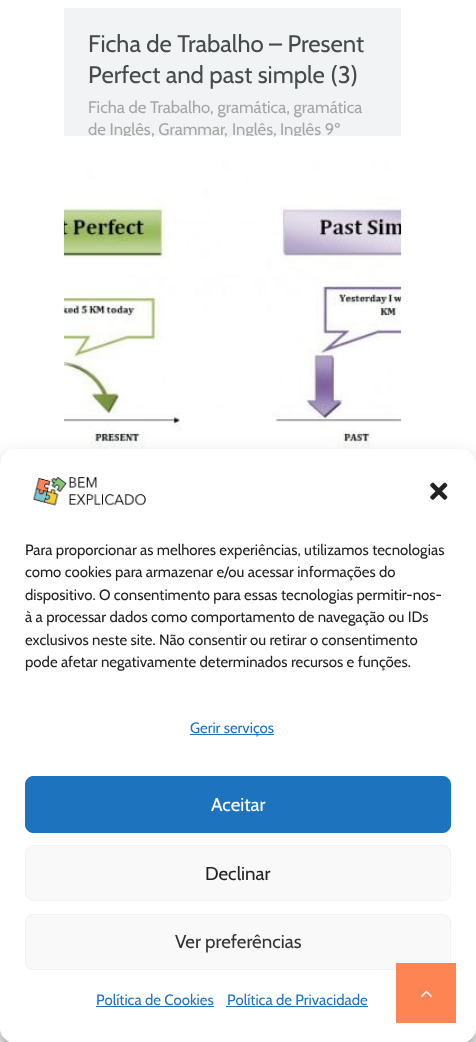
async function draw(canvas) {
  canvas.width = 476
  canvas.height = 1042
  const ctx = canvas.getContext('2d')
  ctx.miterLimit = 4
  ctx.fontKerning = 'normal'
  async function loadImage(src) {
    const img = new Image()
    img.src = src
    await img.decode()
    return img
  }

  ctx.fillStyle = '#fff'
  ctx.fillRect(0, 0, 476, 1042)
  ctx.fillStyle = '#f2f3f4'
  ctx.fillRect(64, 8, 337, 128)
  ctx.font = '24px Cabin'
  ctx.fillStyle = '#454a4c'
  ctx.fillText('Ficha de Trabalho – Present', 88, 52)
  ctx.fillText('Perfect and past simple (3)', 88, 83)
  ctx.font = '16.7px Cabin'
  ctx.fillStyle = '#a6a6a6'
  ctx.fillText('Ficha de Trabalho, gramática, gramática', 88, 113)
  ctx.save()
  ctx.beginPath()
  ctx.rect(64, 9, 337, 127)
  ctx.clip()
  ctx.fillText('de Inglês', 88, 135)
  ctx.restore()
  ctx.fillText(', Grammar', 151, 135)
  ctx.fillText(',', 224, 135)
  ctx.save()
  ctx.beginPath()
  ctx.rect(64, 9, 337, 127)
  ctx.clip()
  ctx.fillText('Inglês', 232, 135)
  ctx.restore()
  ctx.fillText(',', 273, 135)
  ctx.save()
  ctx.beginPath()
  ctx.rect(64, 9, 337, 127)
  ctx.clip()
  ctx.fillText('Inglês 9º', 280, 135)
  ctx.restore()
  ctx.drawImage(await loadImage('image0.png'), 63, 161, 339, 288)
  ctx.fillStyle = '#0000003b'
  ctx.filter = 'blur(4px)'
  ctx.beginPath()
  ctx.roundRect(0, 456, 476, 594, 15)
  ctx.fill()
  ctx.filter = 'none'
  ctx.fillStyle = '#00000030'
  ctx.filter = 'blur(12.5px)'
  ctx.beginPath()
  ctx.roundRect(0, 461, 476, 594, 15)
  ctx.fill()
  ctx.filter = 'none'
  ctx.fillStyle = '#fff'
  ctx.beginPath()
  ctx.roundRect(0, 449, 476, 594, 15)
  ctx.fill()
  ctx.drawImage(await loadImage('image1.png'), 33, 476, 113, 30)
  ctx.drawImage(await loadImage('image2.png'), 430, 482, 18, 18)
  ctx.font = '15px Cabin'
  ctx.fillStyle = '#222'
  ctx.fillText('Para proporcionar as melhores experiências, utilizamos tecnologias', 25, 555)
  ctx.fillText('como cookies para armazenar e/ou acessar informações do', 25, 577)
  ctx.fillText('dispositivo. O consentimento para essas tecnologias permitir-nos-', 25, 600)
  ctx.fillText('à a processar dados como comportamento de navegação ou IDs', 25, 622)
  ctx.fillText('exclusivos neste site. Não consentir ou retirar o consentimento', 25, 645)
  ctx.fillText('pode afetar negativamente determinados recursos e funções.', 25, 667)
  ctx.fillStyle = '#1e73be'
  ctx.fillRect(190, 734, 84, 1)
  ctx.fillText('Gerir serviços', 190, 733)
  ctx.beginPath()
  ctx.roundRect(25.5, 776.5, 425, 56, 7.5)
  ctx.fill()
  ctx.strokeStyle = '#1e73be'
  ctx.stroke()
  ctx.font = '18.75px Cabin'
  ctx.fillStyle = '#fff'
  ctx.fillText('Aceitar', 211, 811)
  ctx.fillStyle = '#f9f9f9'
  ctx.beginPath()
  ctx.roundRect(25.5, 845.5, 425, 55, 7.5)
  ctx.fill()
  ctx.strokeStyle = '#f2f2f2'
  ctx.stroke()
  ctx.fillStyle = '#222'
  ctx.fillText('Declinar', 205, 880)
  ctx.fillStyle = '#f9f9f9'
  ctx.beginPath()
  ctx.roundRect(25.5, 914.5, 425, 55, 7.5)
  ctx.fill()
  ctx.stroke()
  ctx.fillStyle = '#333'
  ctx.fillText('Ver preferências', 175, 948)
  ctx.font = '15px Cabin'
  ctx.fillStyle = '#1e73be'
  ctx.fillText('Política de Cookies', 96, 1005)
  ctx.fillRect(96, 1006, 118, 1)
  ctx.fillText('Política de Privacidade', 227, 1005)
  ctx.fillRect(226, 1006, 142, 1)
  ctx.fillStyle = '#ff8454'
  ctx.fillRect(396, 963, 60, 60)
  ctx.drawImage(await loadImage('image3.png'), 420, 990, 12, 8)
}

draw(document.querySelector('canvas'))
